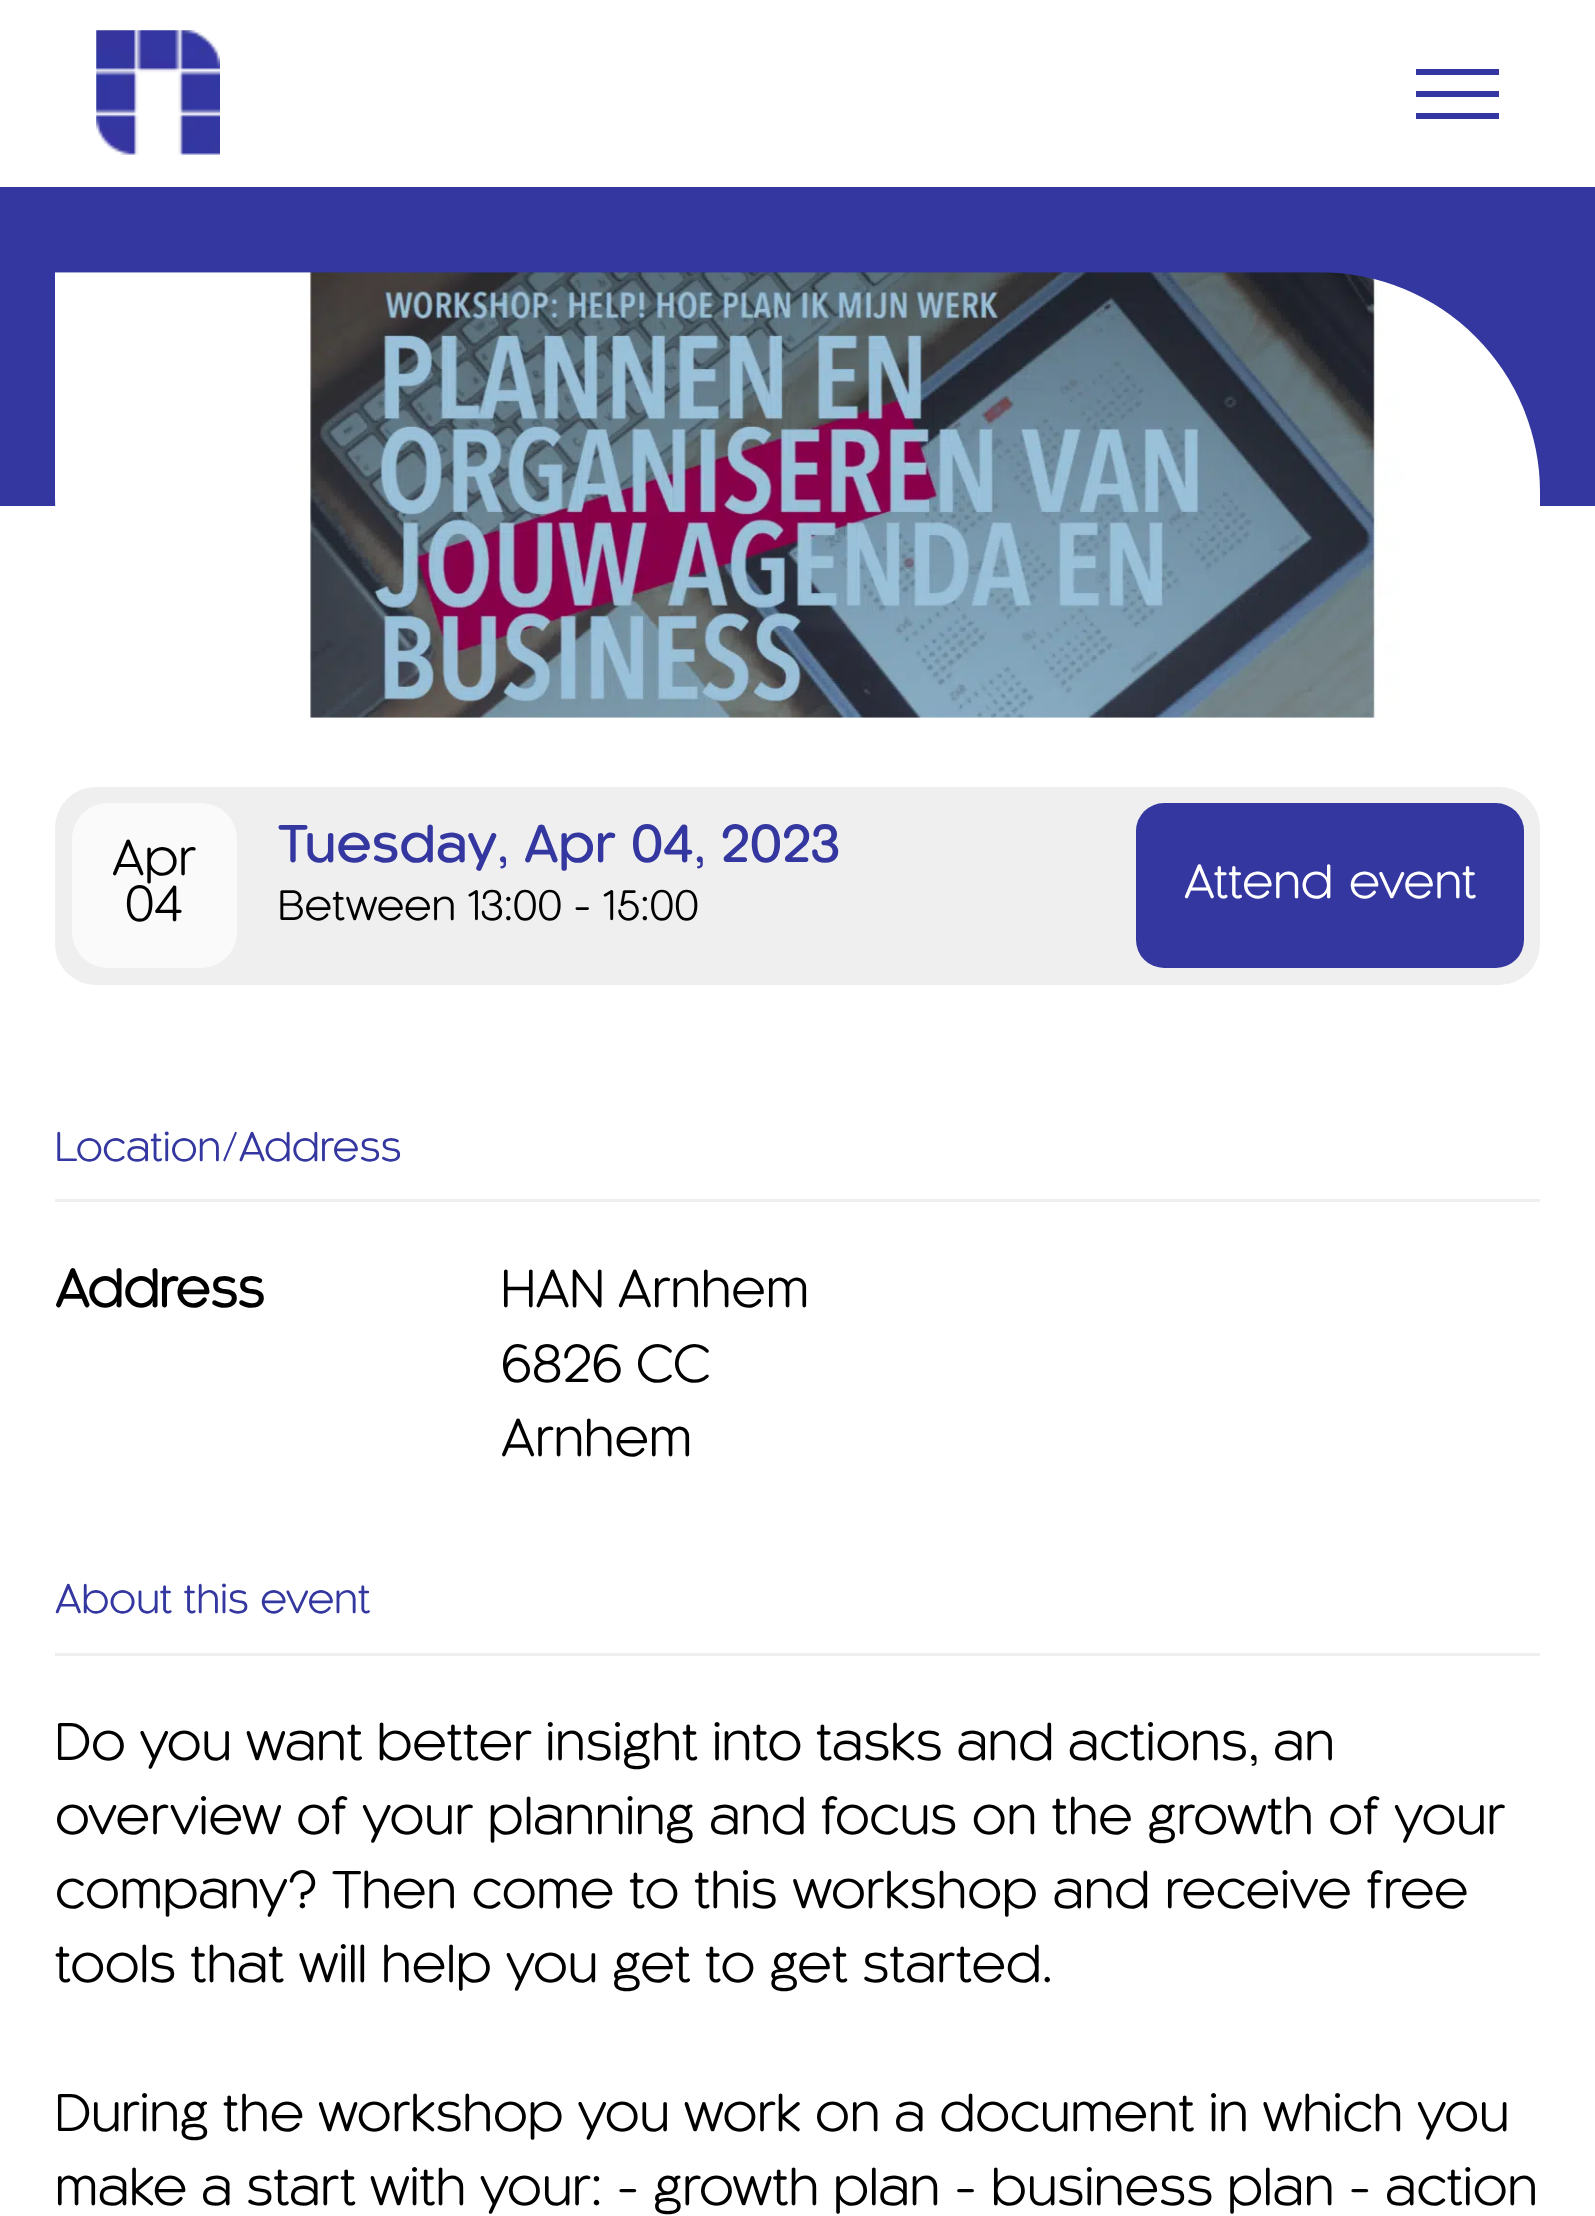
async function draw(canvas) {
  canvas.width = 1595
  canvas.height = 2216
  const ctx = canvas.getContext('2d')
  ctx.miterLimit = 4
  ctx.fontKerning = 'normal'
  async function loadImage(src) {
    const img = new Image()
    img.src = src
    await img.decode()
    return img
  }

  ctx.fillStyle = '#fff'
  ctx.fillRect(0, 0, 1595, 2216)
  ctx.drawImage(await loadImage('image0.png'), 96, 30, 124, 125)
  ctx.fillStyle = '#3437a1'
  ctx.fillRect(1416, 91, 83, 6)
  ctx.fillRect(1416, 69, 83, 6)
  ctx.fillRect(1416, 113, 83, 6)
  ctx.fillStyle = '#3437a0'
  ctx.fillRect(0, 187, 1595, 319)
  ctx.drawImage(await loadImage('image1.png'), 55, 272, 1485, 446)
  ctx.fillStyle = '#efefef'
  ctx.beginPath()
  ctx.roundRect(55, 787, 1485, 198, 41)
  ctx.fill()
  ctx.fillStyle = '#fafafa'
  ctx.beginPath()
  ctx.roundRect(72, 803, 165, 165, 36)
  ctx.fill()
  ctx.font = '47px "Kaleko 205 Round"'
  ctx.fillStyle = '#000'
  ctx.fillText('Apr', 112, 875)
  ctx.fillText('04', 125, 921)
  ctx.wordSpacing = '1.5px'
  ctx.font = '500 49.5px "Kaleko 205 Round"'
  ctx.fillStyle = '#3437a0'
  ctx.fillText('Tuesday, Apr 04, 2023', 278, 862)
  ctx.wordSpacing = '0px'
  ctx.font = '39.6px "Kaleko 205 Round"'
  ctx.fillStyle = '#000'
  ctx.fillText('Between 13:00 - 15:00', 278, 920)
  ctx.fillStyle = '#3437a0'
  ctx.beginPath()
  ctx.roundRect(1136, 803, 388, 165, 28)
  ctx.fill()
  ctx.wordSpacing = '4px'
  ctx.font = '44.5px "Kaleko 205 Round"'
  ctx.fillStyle = '#fff'
  ctx.fillText('Attend event', 1184, 898)
  ctx.fillStyle = '#efefef'
  ctx.fillRect(55, 1199, 1485, 3)
  ctx.wordSpacing = '0px'
  ctx.font = '38.5px "Kaleko 205 Round"'
  ctx.fillStyle = '#3437a0'
  ctx.fillText('Location/Address', 55, 1161)
  ctx.font = 'bold 49.5px "Kaleko 205 Round"'
  ctx.fillStyle = '#000'
  ctx.fillText('Address', 55, 1307)
  ctx.font = '49.5px "Kaleko 205 Round"'
  ctx.fillText('HAN Arnhem', 501, 1307)
  ctx.fillText('6826 CC', 501, 1382)
  ctx.fillText('Arnhem', 501, 1456)
  ctx.fillStyle = '#efefef'
  ctx.fillRect(55, 1653, 1485, 3)
  ctx.wordSpacing = '1px'
  ctx.font = '38.5px "Kaleko 205 Round"'
  ctx.fillStyle = '#3437a0'
  ctx.fillText('About this event', 55, 1613)
  ctx.wordSpacing = '0.5px'
  ctx.font = '49.5px "Kaleko 205 Round"'
  ctx.fillStyle = '#000'
  ctx.fillText('Do you want better insight into tasks and actions, an', 55, 1760)
  ctx.wordSpacing = '1.25px'
  ctx.fillText('overview of your planning and focus on the growth of your', 55, 1834)
  ctx.wordSpacing = '1.5px'
  ctx.fillText('company? Then come to this workshop and receive free', 55, 1908)
  ctx.wordSpacing = '0.75px'
  ctx.fillText('tools that will help you get to get started.', 55, 1982)
  ctx.wordSpacing = '0.6px'
  ctx.fillText('During the workshop you work on a document in which you', 55, 2131)
  ctx.wordSpacing = '0.5px'
  ctx.fillText('make a start with your: - growth plan - business plan - action', 55, 2205)
}

draw(document.querySelector('canvas'))
